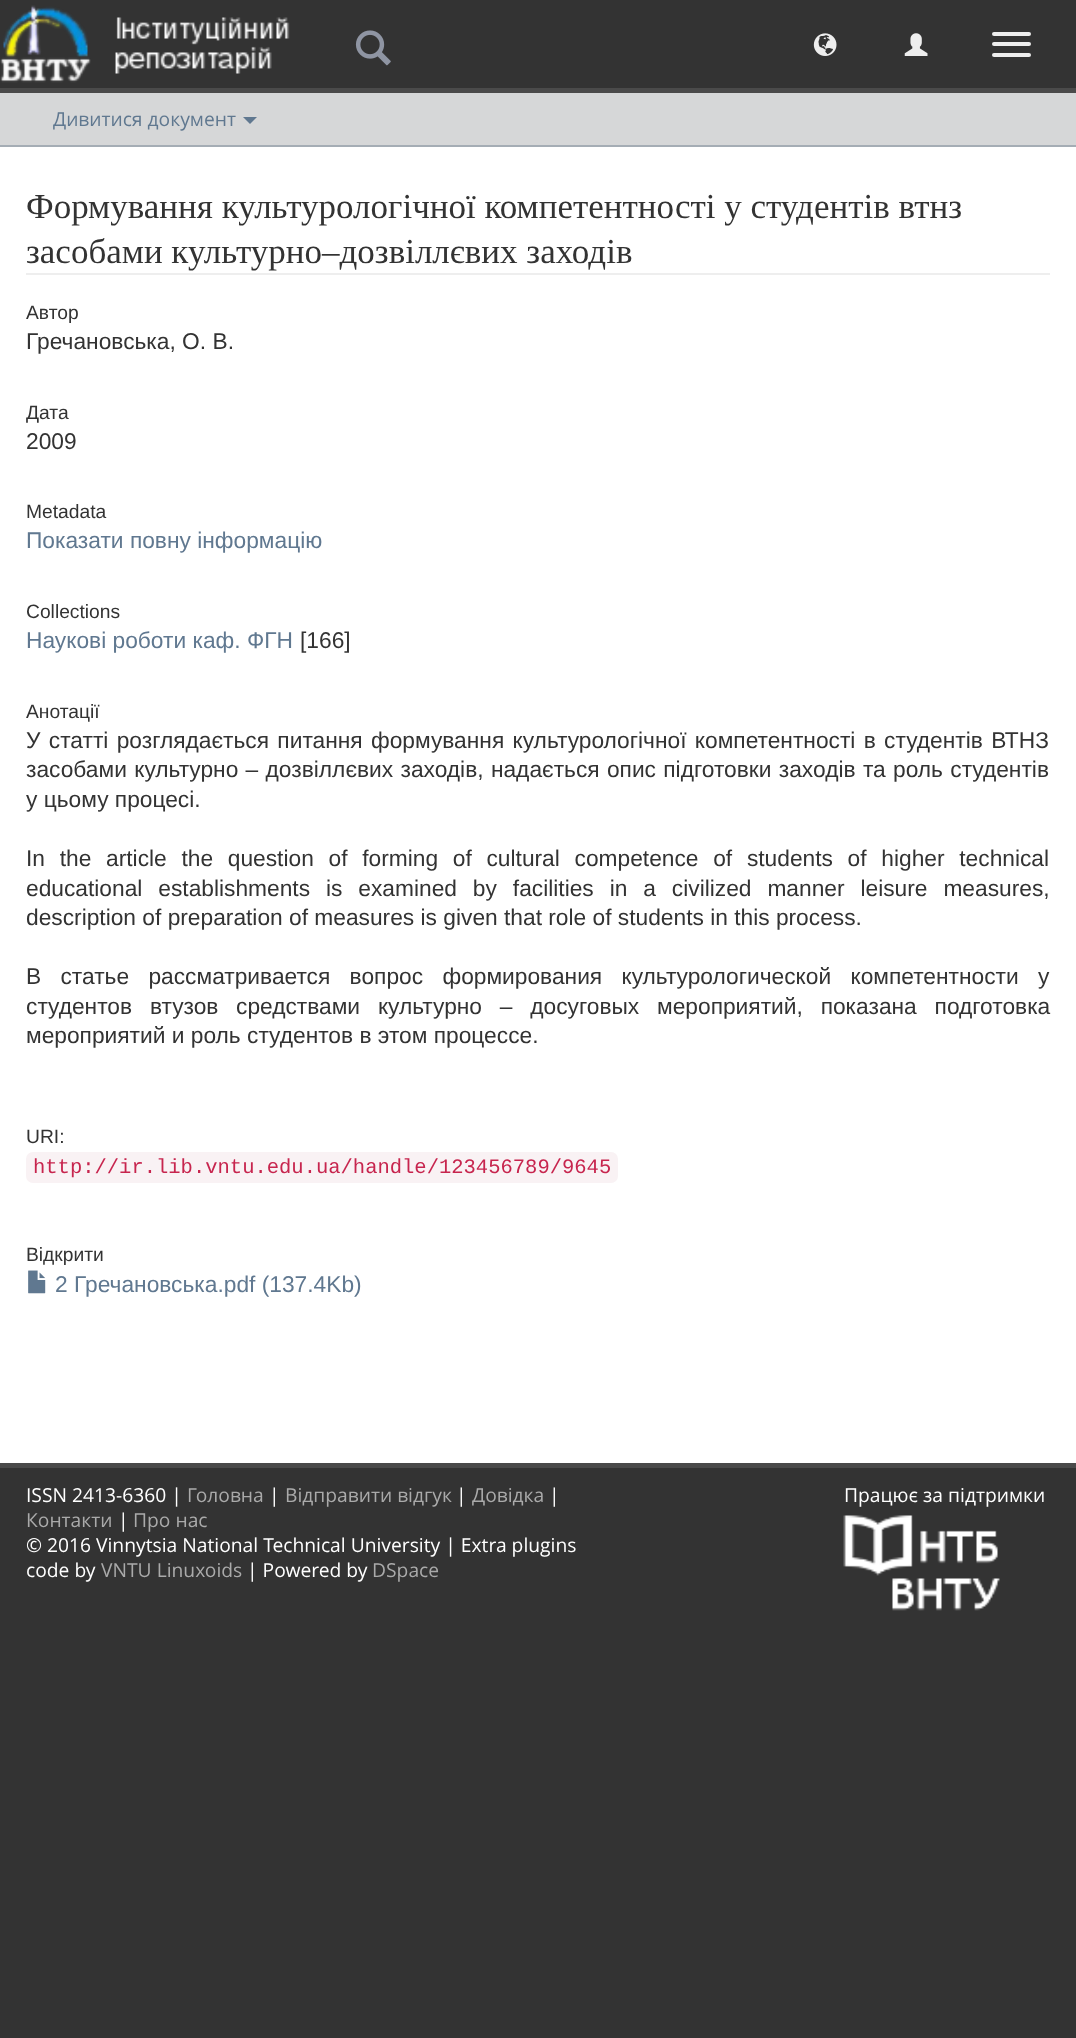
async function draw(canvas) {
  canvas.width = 1076
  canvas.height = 2038
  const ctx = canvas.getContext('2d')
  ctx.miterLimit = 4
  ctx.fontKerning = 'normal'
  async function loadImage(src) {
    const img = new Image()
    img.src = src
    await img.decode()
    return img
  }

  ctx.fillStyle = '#333'
  ctx.fillRect(0, 0, 1076, 2038)
  ctx.fillStyle = '#4a4a4a'
  ctx.fillRect(0, 88, 1076, 5)
  ctx.drawImage(await loadImage('image0.png'), 0, 5, 91, 78)
  ctx.drawImage(await loadImage('image1.png'), 115, 17, 175, 57)
  ctx.drawImage(await loadImage('image2.png'), 355, 30, 36, 36)
  ctx.drawImage(await loadImage('image3.png'), 813, 33, 24, 23)
  ctx.drawImage(await loadImage('image4.png'), 904, 33, 24, 23)
  ctx.fillStyle = '#eee'
  ctx.beginPath()
  ctx.roundRect(992, 32, 39, 4, 2)
  ctx.fill()
  ctx.beginPath()
  ctx.roundRect(992, 42, 39, 4, 2)
  ctx.fill()
  ctx.beginPath()
  ctx.roundRect(992, 53, 39, 4, 2)
  ctx.fill()
  ctx.fillStyle = '#d6d7d8'
  ctx.fillRect(0, 93, 1076, 52)
  ctx.fillStyle = '#a5adb5'
  ctx.fillRect(0, 145, 1076, 2)
  ctx.font = '19.25px Open Sans'
  ctx.fillStyle = '#607890'
  ctx.fillText('Дивитися документ', 53, 126)
  ctx.beginPath()
  ctx.moveTo(243, 117)
  ctx.lineTo(257, 117)
  ctx.lineTo(250, 124)
  ctx.closePath()
  ctx.fill()
  ctx.fillStyle = '#fff'
  ctx.fillRect(0, 147, 1076, 1316)
  ctx.fillStyle = '#eee'
  ctx.fillRect(26, 273, 1024, 2)
  ctx.font = '35px Liberation Serif'
  ctx.fillStyle = '#333'
  ctx.fillText('Формування культурологічної компетентності у студентів втнз', 26, 218)
  ctx.fillText('засобами культурно–дозвіллєвих заходів', 26, 263)
  ctx.font = '19.25px Liberation Sans'
  ctx.fillText('Автор', 26, 319)
  ctx.font = '22.75px Liberation Sans'
  ctx.fillText('Гречановська, О. В.', 26, 349)
  ctx.font = '19.25px Liberation Sans'
  ctx.fillText('Дата', 26, 419)
  ctx.font = '22.75px Liberation Sans'
  ctx.fillText('2009', 26, 449)
  ctx.font = '19.25px Liberation Sans'
  ctx.fillText('Metadata', 26, 518)
  ctx.font = '22.75px Liberation Sans'
  ctx.fillStyle = '#607890'
  ctx.fillText('Показати повну інформацію', 26, 548)
  ctx.font = '19.25px Liberation Sans'
  ctx.fillStyle = '#333'
  ctx.fillText('Collections', 26, 618)
  ctx.font = '22.75px Liberation Sans'
  ctx.fillStyle = '#607890'
  ctx.fillText('Наукові роботи каф. ФГН', 26, 648)
  ctx.fillStyle = '#333'
  ctx.fillText('[166]', 300, 648)
  ctx.font = '19.25px Liberation Sans'
  ctx.fillText('Анотації', 26, 718)
  ctx.wordSpacing = '2px'
  ctx.font = '22.75px Liberation Sans'
  ctx.fillText('У статті розглядається питання формування культурологічної компетентності в студентів ВТНЗ', 26, 748)
  ctx.wordSpacing = '1px'
  ctx.fillText('засобами культурно – дозвіллєвих заходів, надається опис підготовки заходів та роль студентів', 26, 777)
  ctx.wordSpacing = '0px'
  ctx.fillText('у цьому процесі.', 26, 807)
  ctx.wordSpacing = '8.4px'
  ctx.fillText('In the article the question of forming of cultural competence of students of higher technical', 26, 866)
  ctx.wordSpacing = '9.6px'
  ctx.fillText('educational establishments is examined by facilities in a civilized manner leisure measures,', 26, 896)
  ctx.wordSpacing = '0px'
  ctx.fillText('description of preparation of measures is given that role of students in this process.', 26, 925)
  ctx.wordSpacing = '13px'
  ctx.fillText('В статье рассматривается вопрос формирования культурологической компетентности у', 26, 984)
  ctx.wordSpacing = '11.5px'
  ctx.fillText('студентов втузов', 26, 1014)
  ctx.fillText('средствами культурно – досуговых мероприятий, показана подготовка', 236, 1014)
  ctx.wordSpacing = '0px'
  ctx.fillText('мероприятий и роль студентов в этом процессе.', 26, 1043)
  ctx.font = '19.25px Liberation Sans'
  ctx.fillText('URI:', 26, 1143)
  ctx.fillStyle = '#f9f2f4'
  ctx.beginPath()
  ctx.roundRect(26, 1152, 592, 31, 7)
  ctx.fill()
  ctx.font = '20.5px Liberation Mono'
  ctx.fillStyle = '#c7254e'
  ctx.fillText('http://ir.lib.vntu.edu.ua/handle/123456789/9645', 33, 1173)
  ctx.font = '19.25px Liberation Sans'
  ctx.fillStyle = '#333'
  ctx.fillText('Відкрити', 26, 1261)
  ctx.drawImage(await loadImage('image5.png'), 28, 1270, 18, 24)
  ctx.font = '22.75px Liberation Sans'
  ctx.fillStyle = '#607890'
  ctx.fillText('2 Гречановська.pdf (137.4Kb)', 55, 1292)
  ctx.fillStyle = '#4a4a4a'
  ctx.fillRect(0, 1463, 1076, 5)
  ctx.font = '19.25px Open Sans'
  ctx.fillStyle = '#fff'
  ctx.fillText('ISSN 2413-6360 |', 26, 1502)
  ctx.fillStyle = '#aaa'
  ctx.fillText('Головна', 187, 1502)
  ctx.fillStyle = '#fff'
  ctx.fillText('|', 269, 1502)
  ctx.fillStyle = '#aaa'
  ctx.fillText('Відправити відгук', 285, 1502)
  ctx.fillStyle = '#fff'
  ctx.fillText('|', 456, 1502)
  ctx.fillStyle = '#aaa'
  ctx.fillText('Довідка', 472, 1502)
  ctx.fillStyle = '#fff'
  ctx.fillText('|', 549, 1502)
  ctx.fillStyle = '#aaa'
  ctx.fillText('Контакти', 26, 1527)
  ctx.fillStyle = '#fff'
  ctx.fillText('|', 118, 1527)
  ctx.fillStyle = '#aaa'
  ctx.fillText('Про нас', 133, 1527)
  ctx.fillStyle = '#fff'
  ctx.fillText('© 2016 Vinnytsia National Technical University | Extra plugins', 26, 1552)
  ctx.fillText('code by', 26, 1577)
  ctx.fillStyle = '#aaa'
  ctx.fillText('VNTU Linuxoids', 101, 1577)
  ctx.fillStyle = '#fff'
  ctx.fillText('| Powered by', 247, 1577)
  ctx.fillStyle = '#aaa'
  ctx.fillText('DSpace', 372, 1577)
  ctx.fillStyle = '#fff'
  ctx.fillText('Працює за підтримки', 844, 1502)
  ctx.drawImage(await loadImage('image6.png'), 843, 1515, 157, 96)
}

draw(document.querySelector('canvas'))
